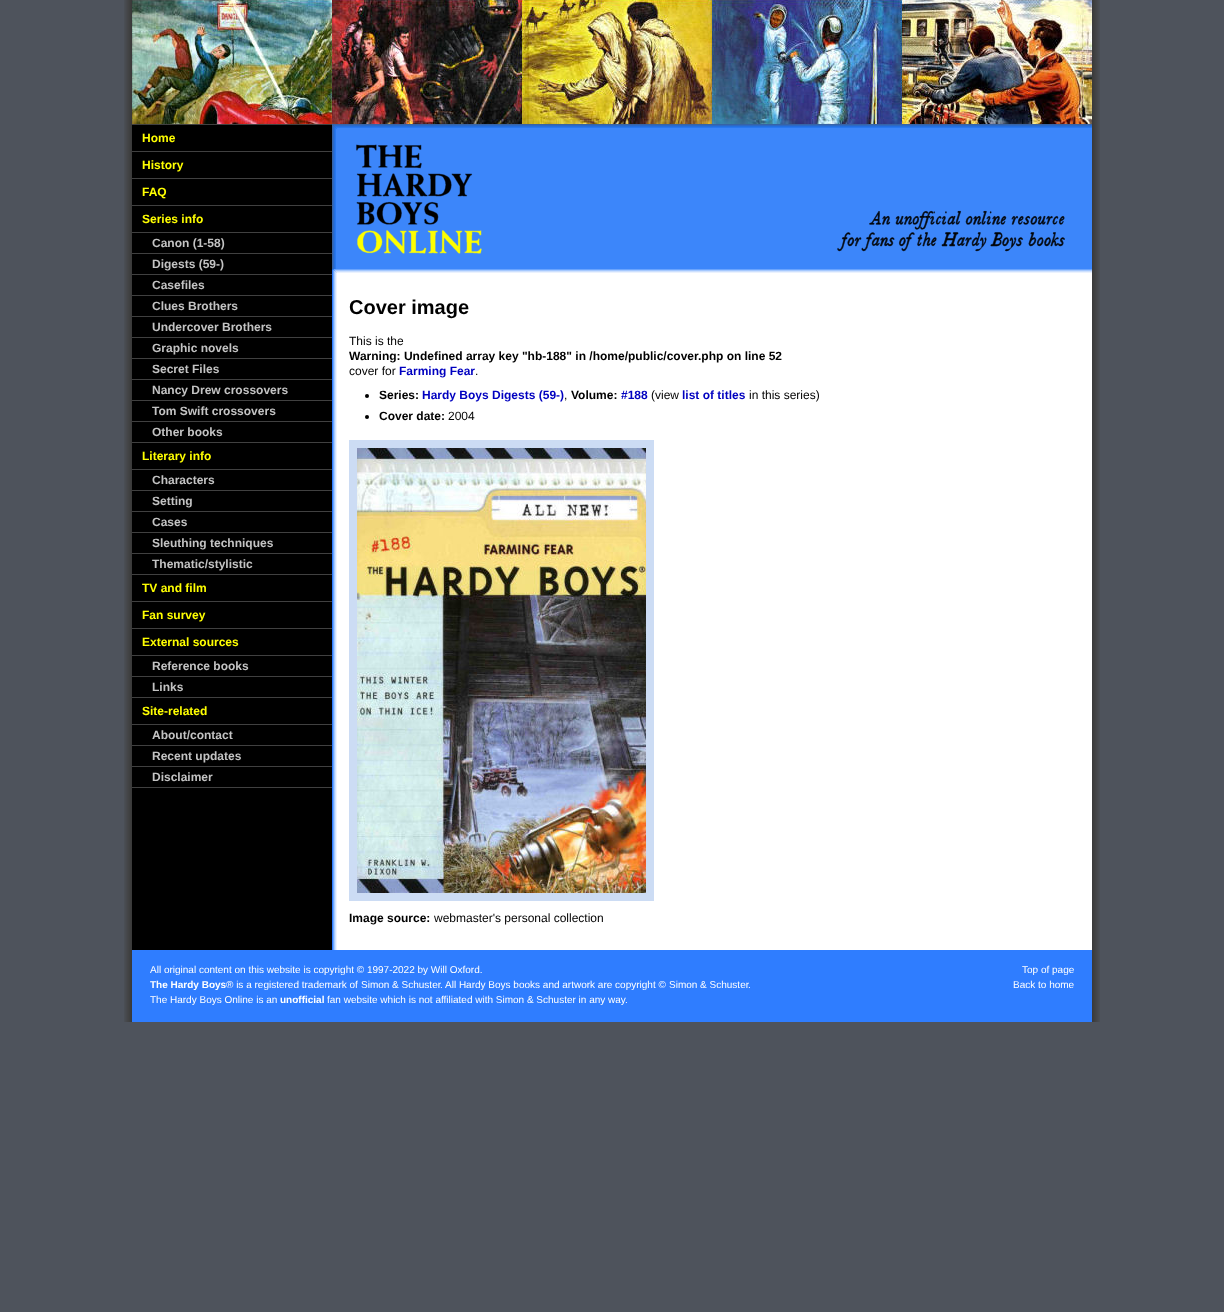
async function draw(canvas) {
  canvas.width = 1224
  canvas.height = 1312
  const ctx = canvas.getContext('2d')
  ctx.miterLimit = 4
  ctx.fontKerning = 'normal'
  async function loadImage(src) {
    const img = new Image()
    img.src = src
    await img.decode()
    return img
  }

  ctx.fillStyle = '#4e535c'
  ctx.fillRect(0, 0, 1224, 1312)
  ctx.drawImage(await loadImage('image0.png'), 124, 0, 976, 1022)
  ctx.drawImage(await loadImage('image1.png'), 132, 0, 200, 124)
  ctx.fillStyle = '#404040'
  ctx.fillRect(132, 787, 200, 1)
  ctx.fillRect(132, 124, 200, 1)
  ctx.font = 'bold 12px Liberation Sans'
  ctx.fillStyle = '#ff0'
  ctx.fillText('Home', 142, 142)
  ctx.fillStyle = '#404040'
  ctx.fillRect(132, 151, 200, 1)
  ctx.fillStyle = '#ff0'
  ctx.fillText('History', 142, 169)
  ctx.fillStyle = '#404040'
  ctx.fillRect(132, 178, 200, 1)
  ctx.fillStyle = '#ff0'
  ctx.fillText('FAQ', 142, 196)
  ctx.fillStyle = '#404040'
  ctx.fillRect(132, 205, 200, 1)
  ctx.fillStyle = '#ff0'
  ctx.fillText('Series info', 142, 223)
  ctx.fillStyle = '#404040'
  ctx.fillRect(132, 232, 200, 1)
  ctx.fillStyle = '#c3c3c3'
  ctx.fillText('Canon (1-58)', 152, 247)
  ctx.fillStyle = '#404040'
  ctx.fillRect(132, 253, 200, 1)
  ctx.fillStyle = '#c3c3c3'
  ctx.fillText('Digests (59-)', 152, 268)
  ctx.fillStyle = '#404040'
  ctx.fillRect(132, 274, 200, 1)
  ctx.fillStyle = '#c3c3c3'
  ctx.fillText('Casefiles', 152, 289)
  ctx.fillStyle = '#404040'
  ctx.fillRect(132, 295, 200, 1)
  ctx.fillStyle = '#c3c3c3'
  ctx.fillText('Clues Brothers', 152, 310)
  ctx.fillStyle = '#404040'
  ctx.fillRect(132, 316, 200, 1)
  ctx.fillStyle = '#c3c3c3'
  ctx.fillText('Undercover Brothers', 152, 331)
  ctx.fillStyle = '#404040'
  ctx.fillRect(132, 337, 200, 1)
  ctx.fillStyle = '#c3c3c3'
  ctx.fillText('Graphic novels', 152, 352)
  ctx.fillStyle = '#404040'
  ctx.fillRect(132, 358, 200, 1)
  ctx.fillStyle = '#c3c3c3'
  ctx.fillText('Secret Files', 152, 373)
  ctx.fillStyle = '#404040'
  ctx.fillRect(132, 379, 200, 1)
  ctx.fillStyle = '#c3c3c3'
  ctx.fillText('Nancy Drew crossovers', 152, 394)
  ctx.fillStyle = '#404040'
  ctx.fillRect(132, 400, 200, 1)
  ctx.fillStyle = '#c3c3c3'
  ctx.fillText('Tom Swift crossovers', 152, 415)
  ctx.fillStyle = '#404040'
  ctx.fillRect(132, 421, 200, 1)
  ctx.fillStyle = '#c3c3c3'
  ctx.fillText('Other books', 152, 436)
  ctx.fillStyle = '#404040'
  ctx.fillRect(132, 442, 200, 1)
  ctx.fillStyle = '#ff0'
  ctx.fillText('Literary info', 142, 460)
  ctx.fillStyle = '#404040'
  ctx.fillRect(132, 469, 200, 1)
  ctx.fillStyle = '#c3c3c3'
  ctx.fillText('Characters', 152, 484)
  ctx.fillStyle = '#404040'
  ctx.fillRect(132, 490, 200, 1)
  ctx.fillStyle = '#c3c3c3'
  ctx.fillText('Setting', 152, 505)
  ctx.fillStyle = '#404040'
  ctx.fillRect(132, 511, 200, 1)
  ctx.fillStyle = '#c3c3c3'
  ctx.fillText('Cases', 152, 526)
  ctx.fillStyle = '#404040'
  ctx.fillRect(132, 532, 200, 1)
  ctx.fillStyle = '#c3c3c3'
  ctx.fillText('Sleuthing techniques', 152, 547)
  ctx.fillStyle = '#404040'
  ctx.fillRect(132, 553, 200, 1)
  ctx.fillStyle = '#c3c3c3'
  ctx.fillText('Thematic/stylistic', 152, 568)
  ctx.fillStyle = '#404040'
  ctx.fillRect(132, 574, 200, 1)
  ctx.fillStyle = '#ff0'
  ctx.fillText('TV and film', 142, 592)
  ctx.fillStyle = '#404040'
  ctx.fillRect(132, 601, 200, 1)
  ctx.fillStyle = '#ff0'
  ctx.fillText('Fan survey', 142, 619)
  ctx.fillStyle = '#404040'
  ctx.fillRect(132, 628, 200, 1)
  ctx.fillStyle = '#ff0'
  ctx.fillText('External sources', 142, 646)
  ctx.fillStyle = '#404040'
  ctx.fillRect(132, 655, 200, 1)
  ctx.fillStyle = '#c3c3c3'
  ctx.fillText('Reference books', 152, 670)
  ctx.fillStyle = '#404040'
  ctx.fillRect(132, 676, 200, 1)
  ctx.fillStyle = '#c3c3c3'
  ctx.fillText('Links', 152, 691)
  ctx.fillStyle = '#404040'
  ctx.fillRect(132, 697, 200, 1)
  ctx.fillStyle = '#ff0'
  ctx.fillText('Site-related', 142, 715)
  ctx.fillStyle = '#404040'
  ctx.fillRect(132, 724, 200, 1)
  ctx.fillStyle = '#c3c3c3'
  ctx.fillText('About/contact', 152, 739)
  ctx.fillStyle = '#404040'
  ctx.fillRect(132, 745, 200, 1)
  ctx.fillStyle = '#c3c3c3'
  ctx.fillText('Recent updates', 152, 760)
  ctx.fillStyle = '#404040'
  ctx.fillRect(132, 766, 200, 1)
  ctx.fillStyle = '#c3c3c3'
  ctx.fillText('Disclaimer', 152, 781)
  ctx.drawImage(await loadImage('image2.png'), 332, 0, 760, 124)
  ctx.drawImage(await loadImage('image3.png'), 332, 124, 760, 149)
  ctx.font = 'bold 20px Liberation Sans'
  ctx.fillStyle = '#000'
  ctx.fillText('Cover image', 349, 314)
  ctx.font = '12px Liberation Sans'
  ctx.fillText('This is the', 349, 345)
  ctx.font = 'bold 12px Liberation Sans'
  ctx.fillText('Warning: Undefined array key "hb-188" in /home/public/cover.php on line 52', 349, 360)
  ctx.font = '12px Liberation Sans'
  ctx.fillText('cover for', 349, 375)
  ctx.font = 'bold 12px Liberation Sans'
  ctx.fillStyle = '#0000c0'
  ctx.fillText('Farming Fear', 399, 375)
  ctx.font = '12px Liberation Sans'
  ctx.fillStyle = '#000'
  ctx.fillText('.', 475, 375)
  ctx.beginPath()
  ctx.arc(367, 396, 2, 0, 2 * Math.PI)
  ctx.fill()
  ctx.font = 'bold 12px Liberation Sans'
  ctx.fillText('Series:', 379, 399)
  ctx.fillStyle = '#0000c0'
  ctx.fillText('Hardy Boys Digests (59-)', 422, 399)
  ctx.fillStyle = '#000'
  ctx.fillText('Volume:', 571, 399)
  ctx.fillStyle = '#0000c0'
  ctx.fillText('#188', 621, 399)
  ctx.font = '12px Liberation Sans'
  ctx.fillStyle = '#000'
  ctx.fillText('(view', 651, 399)
  ctx.font = 'bold 12px Liberation Sans'
  ctx.fillStyle = '#0000c0'
  ctx.fillText('list of titles', 682, 399)
  ctx.font = '12px Liberation Sans'
  ctx.fillStyle = '#000'
  ctx.fillText('in this series)', 749, 399)
  ctx.fillText(',', 564, 399)
  ctx.beginPath()
  ctx.arc(367, 417, 2, 0, 2 * Math.PI)
  ctx.fill()
  ctx.font = 'bold 12px Liberation Sans'
  ctx.fillText('Cover date:', 379, 420)
  ctx.font = '12px Liberation Sans'
  ctx.fillText('2004', 448, 420)
  ctx.fillStyle = '#ccdcf4'
  ctx.fillRect(349, 440, 305, 461)
  ctx.drawImage(await loadImage('image4.png'), 357, 448, 289, 445)
  ctx.font = 'bold 12px Liberation Sans'
  ctx.fillStyle = '#000'
  ctx.fillText('Image source:', 349, 922)
  ctx.font = '12px Liberation Sans'
  ctx.fillText('webmaster\'s personal collection', 434, 922)
  ctx.fillStyle = '#2f7dff'
  ctx.fillRect(132, 950, 960, 72)
  ctx.font = '10px Liberation Sans'
  ctx.fillStyle = '#fff'
  ctx.fillText('All original content on this website is copyright © 1997-2022 by Will Oxford.', 150, 973)
  ctx.fillText('Top of page', 1022, 973)
  ctx.fillText('Back to home', 1013, 988)
  ctx.font = 'bold 10px Liberation Sans'
  ctx.fillText('The Hardy Boys', 150, 988)
  ctx.font = '10px Liberation Sans'
  ctx.fillText('® is a registered trademark of', 226, 988)
  ctx.fillText('Simon & Schuster', 361, 988)
  ctx.fillText('. All Hardy Boys books and artwork are copyright ©', 440, 988)
  ctx.fillText('Simon & Schuster', 669, 988)
  ctx.fillText('.', 748, 988)
  ctx.fillText('The Hardy Boys Online is an', 150, 1003)
  ctx.font = 'bold 10px Liberation Sans'
  ctx.fillText('unofficial', 280, 1003)
  ctx.font = '10px Liberation Sans'
  ctx.fillText('fan website which is not affiliated with Simon & Schuster in any way.', 327, 1003)
}

draw(document.querySelector('canvas'))
